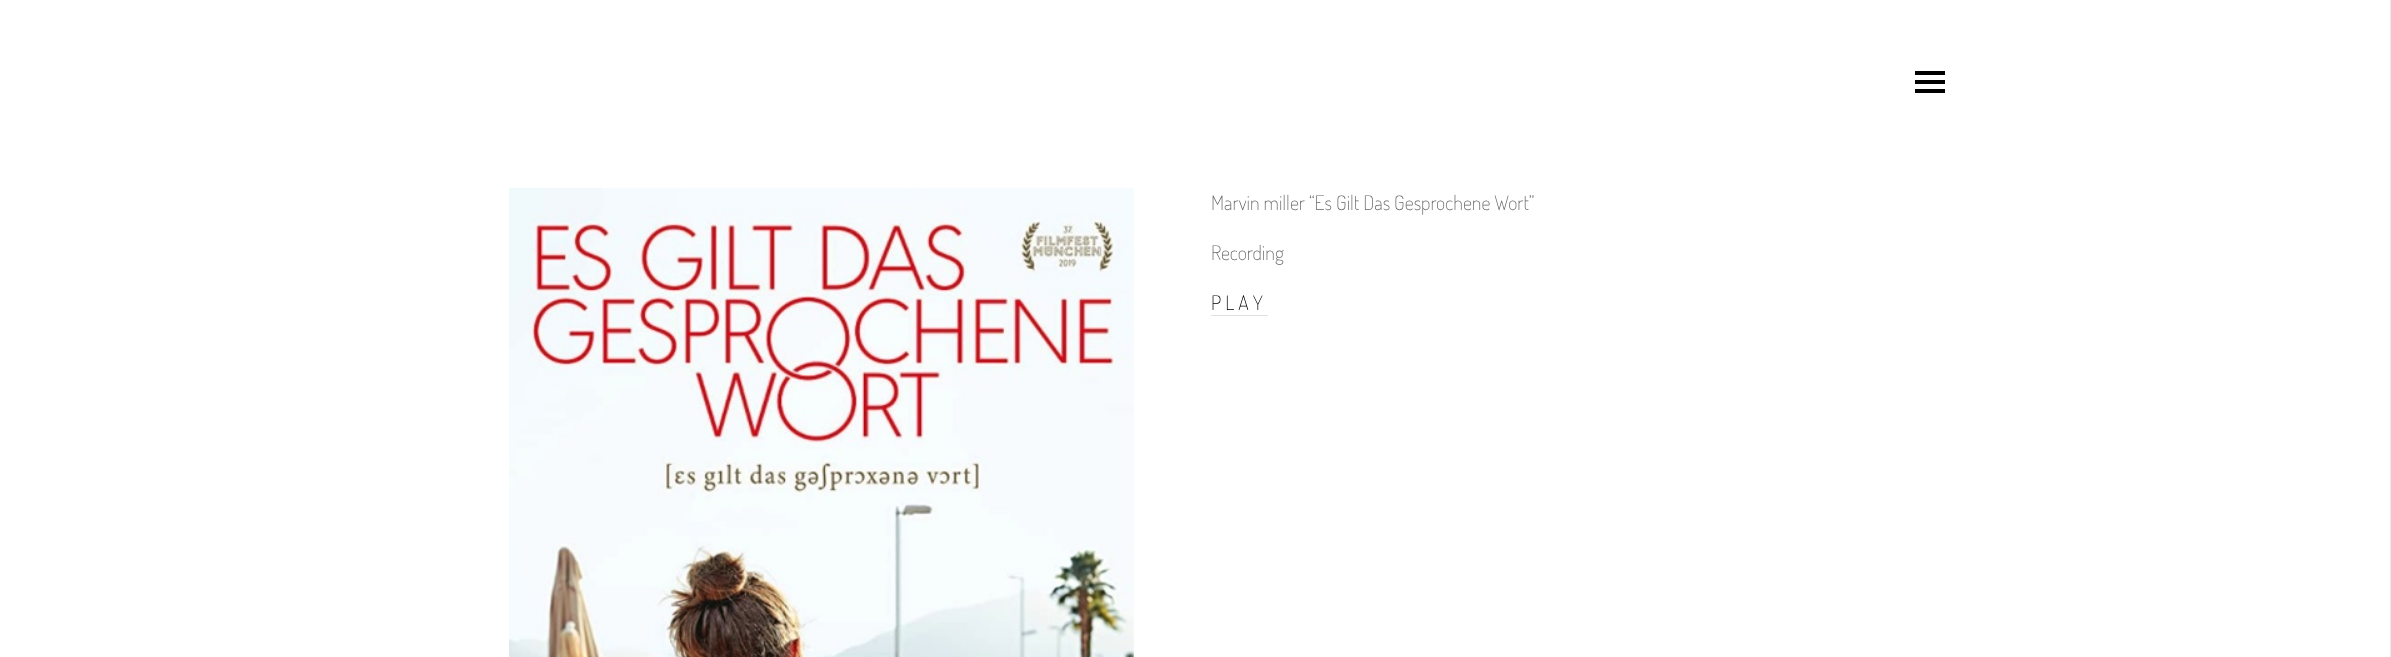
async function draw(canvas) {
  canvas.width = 2391
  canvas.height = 657
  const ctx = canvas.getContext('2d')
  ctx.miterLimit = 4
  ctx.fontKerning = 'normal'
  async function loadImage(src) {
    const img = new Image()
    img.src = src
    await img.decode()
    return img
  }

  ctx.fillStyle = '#fff'
  ctx.fillRect(0, 0, 2391, 657)
  ctx.drawImage(await loadImage('image0.png'), 509, 187, 625, 470)
  ctx.font = '200 20px Dosis'
  ctx.fillStyle = '#666'
  ctx.fillText('Marvin miller “Es Gilt Das Gesprochene Wort”', 1211, 210)
  ctx.fillText('Recording', 1211, 260)
  ctx.fillStyle = '#000'
  ctx.fillText('P L A Y', 1211, 310)
  ctx.fillStyle = '#e0e0e0'
  ctx.fillRect(1211, 315, 57, 1)
  ctx.fillStyle = '#000'
  ctx.fillRect(1915, 80, 30, 4)
  ctx.fillRect(1915, 71, 30, 4)
  ctx.fillRect(1915, 89, 30, 4)
  ctx.fillStyle = '#ebebeb'
  ctx.fillRect(2390, 0, 1, 657)
}

draw(document.querySelector('canvas'))
